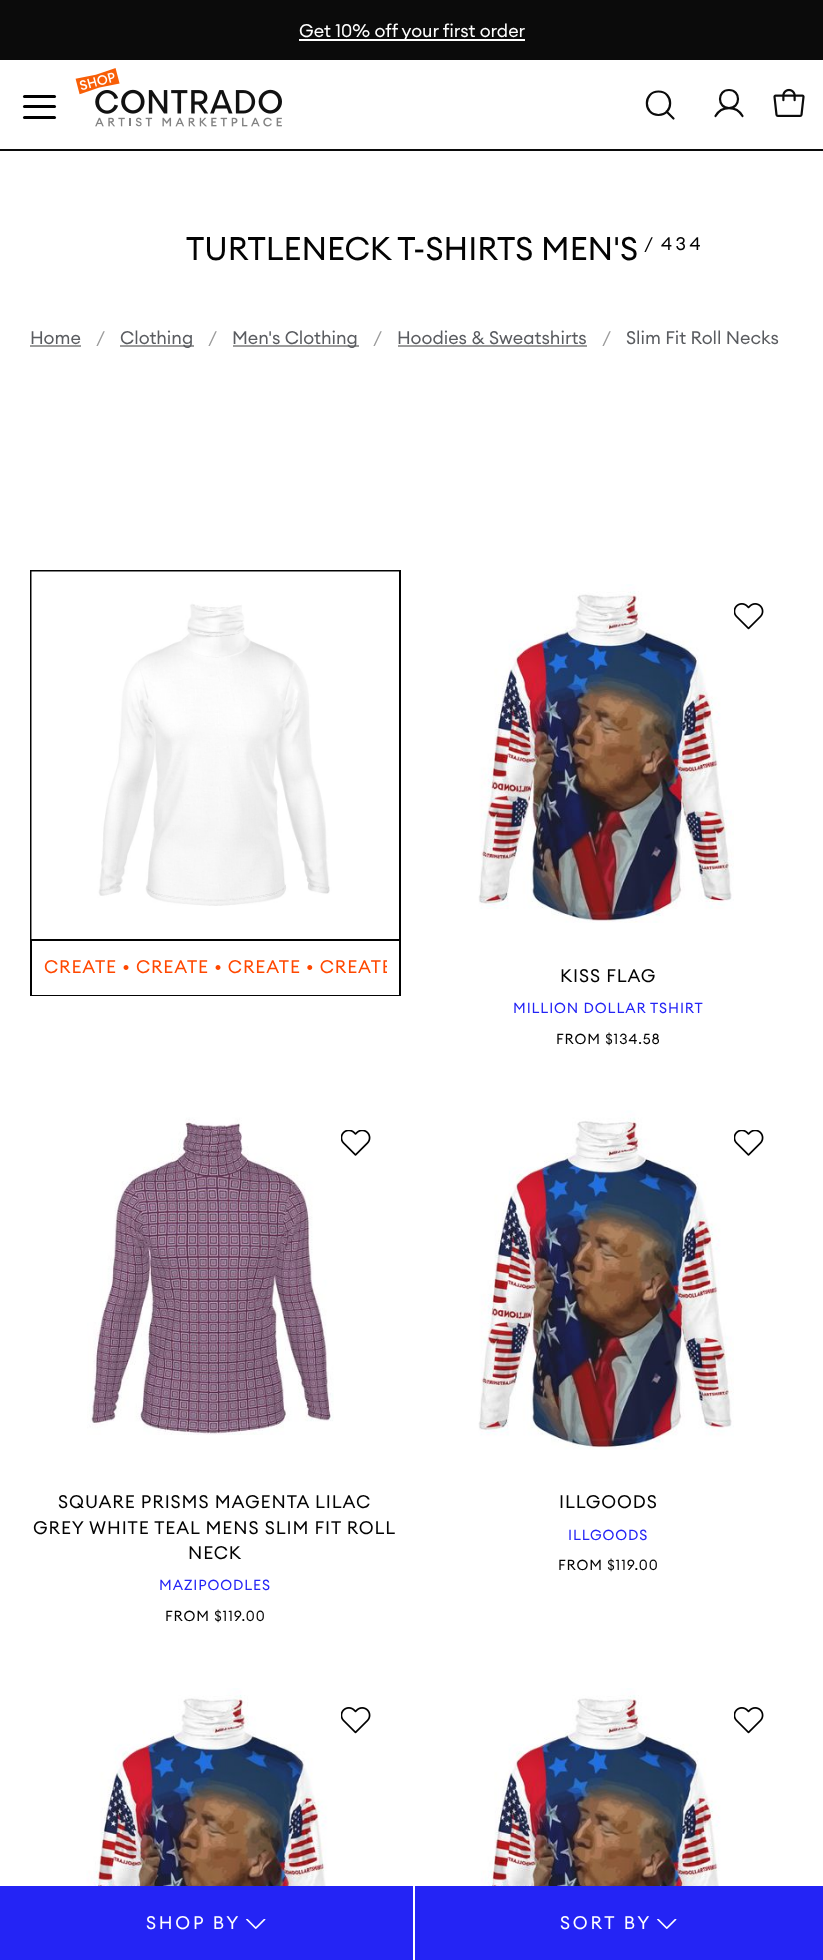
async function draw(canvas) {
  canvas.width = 823
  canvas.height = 1960
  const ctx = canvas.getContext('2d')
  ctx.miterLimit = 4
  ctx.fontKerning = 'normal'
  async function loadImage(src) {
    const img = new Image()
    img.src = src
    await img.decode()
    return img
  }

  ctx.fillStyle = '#fff'
  ctx.fillRect(0, 0, 823, 1960)
  ctx.fillStyle = '#0b0b0b'
  ctx.fillRect(0, 0, 823, 60)
  ctx.fillStyle = '#fff'
  ctx.fillRect(299, 39, 226, 2)
  ctx.font = '18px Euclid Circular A'
  ctx.fillText('Get 10% off your first order', 299, 37)
  ctx.fillStyle = '#0b0b0b'
  ctx.fillRect(0, 149, 823, 2)
  ctx.fillStyle = '#000'
  ctx.beginPath()
  ctx.roundRect(23, 116, 33, 3, 1.5)
  ctx.fill()
  ctx.beginPath()
  ctx.roundRect(23, 95, 33, 3, 1.5)
  ctx.fill()
  ctx.beginPath()
  ctx.roundRect(23, 105, 33, 3, 1.5)
  ctx.fill()
  ctx.drawImage(await loadImage('image0.png'), 75, 68, 207, 59)
  ctx.beginPath()
  ctx.moveTo(658.5, 115)
  ctx.bezierCurveTo(674, 115, 674, 91.5, 658.5, 91.5)
  ctx.bezierCurveTo(643, 91.5, 643, 115, 658.5, 115)
  ctx.closePath()
  ctx.moveTo(666.5, 111.5)
  ctx.lineTo(673.5, 118.5)
  ctx.strokeStyle = '#0b0b0b'
  ctx.lineWidth = 2.2
  ctx.lineCap = 'round'
  ctx.lineJoin = 'round'
  ctx.stroke()
  ctx.beginPath()
  ctx.moveTo(729, 108)
  ctx.bezierCurveTo(741, 108, 741, 90, 729, 90)
  ctx.bezierCurveTo(717, 90, 717, 108, 729, 108)
  ctx.closePath()
  ctx.moveTo(715.5, 116)
  ctx.bezierCurveTo(721.5, 105.5, 736.5, 105.5, 742.5, 116)
  ctx.stroke()
  ctx.drawImage(await loadImage('image1.png'), 773, 88, 32, 29)
  ctx.font = '32.25px Euclid Circular A'
  ctx.fillStyle = '#030303'
  ctx.fillText('TURTLENECK T-SHIRTS MEN\'S', 186, 260)
  ctx.letterSpacing = '3.5px'
  ctx.font = '18px Euclid Circular A'
  ctx.fillText('/', 644, 250)
  ctx.fillText('434', 661, 250)
  ctx.letterSpacing = '0px'
  ctx.fillStyle = '#5a5c60'
  ctx.fillText('Home', 30, 344)
  ctx.fillStyle = '#9c9c9c'
  ctx.fillRect(30, 345, 51, 2)
  ctx.fillText('/', 96, 344)
  ctx.fillRect(120, 345, 74, 2)
  ctx.fillStyle = '#5a5c60'
  ctx.fillText('Clothing', 120, 344)
  ctx.fillStyle = '#9c9c9c'
  ctx.fillText('/', 208, 344)
  ctx.fillRect(233, 345, 126, 2)
  ctx.fillStyle = '#5a5c60'
  ctx.fillText('Men\'s Clothing', 232, 344)
  ctx.fillStyle = '#9c9c9c'
  ctx.fillText('/', 373, 344)
  ctx.fillStyle = '#5a5c60'
  ctx.fillText('Hoodies & Sweatshirts', 397, 344)
  ctx.fillStyle = '#9c9c9c'
  ctx.fillRect(398, 345, 189, 2)
  ctx.fillText('/', 602, 344)
  ctx.fillStyle = '#5a5c60'
  ctx.fillText('Slim Fit Roll Necks', 626, 344)
  ctx.strokeStyle = '#030303'
  ctx.lineWidth = 2
  ctx.lineJoin = 'miter'
  ctx.strokeRect(31, 571, 369, 424)
  ctx.drawImage(await loadImage('image2.png'), 31, 571, 368, 368)
  ctx.fillStyle = '#fff'
  ctx.fillRect(32, 994, 367, 1)
  ctx.fillStyle = '#030303'
  ctx.fillRect(32, 939, 367, 2)
  ctx.save()
  ctx.beginPath()
  ctx.rect(44, 959, 343, 18)
  ctx.clip()
  ctx.letterSpacing = '0.9px'
  ctx.fillStyle = '#ff4800'
  ctx.fillText('CREATE • CREATE • CREATE • CREATE', 44, 973)
  ctx.restore()
  ctx.drawImage(await loadImage('image3.png'), 478, 584, 256, 339)
  ctx.drawImage(await loadImage('image4.png'), 734, 603, 30, 27)
  ctx.letterSpacing = '0.9px'
  ctx.fillText('KISS FLAG', 560, 982)
  ctx.font = '14.4px Euclid Circular A'
  ctx.fillStyle = '#2424f5'
  ctx.fillText('MILLION DOLLAR TSHIRT', 513, 1013)
  ctx.fillStyle = '#030303'
  ctx.fillText('FROM $134.58', 556, 1044)
  ctx.drawImage(await loadImage('image5.png'), 87, 1117, 247, 318)
  ctx.drawImage(await loadImage('image6.png'), 341, 1130, 30, 26)
  ctx.font = '18px Euclid Circular A'
  ctx.fillText('SQUARE PRISMS MAGENTA LILAC', 58, 1508)
  ctx.fillText('GREY WHITE TEAL MENS SLIM FIT ROLL', 33, 1534)
  ctx.fillText('NECK', 188, 1559)
  ctx.font = '14.4px Euclid Circular A'
  ctx.fillStyle = '#2424f5'
  ctx.fillText('MAZIPOODLES', 159, 1590)
  ctx.fillStyle = '#030303'
  ctx.fillText('FROM $119.00', 165, 1621)
  ctx.drawImage(await loadImage('image7.png'), 478, 1110, 256, 340)
  ctx.drawImage(await loadImage('image6.png'), 734, 1130, 30, 26)
  ctx.font = '18px Euclid Circular A'
  ctx.fillText('ILLGOODS', 559, 1508)
  ctx.font = '14.4px Euclid Circular A'
  ctx.fillStyle = '#2424f5'
  ctx.fillText('ILLGOODS', 568, 1540)
  ctx.fillStyle = '#030303'
  ctx.fillText('FROM $119.00', 558, 1570)
  ctx.drawImage(await loadImage('image8.png'), 86, 1688, 254, 198)
  ctx.drawImage(await loadImage('image4.png'), 341, 1707, 30, 27)
  ctx.drawImage(await loadImage('image9.png'), 480, 1688, 254, 198)
  ctx.drawImage(await loadImage('image4.png'), 734, 1707, 30, 27)
  ctx.fillStyle = '#2424f5'
  ctx.fillRect(0, 1886, 413, 74)
  ctx.letterSpacing = '2.75px'
  ctx.font = '18px Euclid Circular A'
  ctx.fillStyle = '#fff'
  ctx.fillText('SHOP BY', 146, 1929)
  ctx.drawImage(await loadImage('image10.png'), 246, 1919, 20, 10)
  ctx.fillStyle = '#2424f5'
  ctx.fillRect(415, 1886, 408, 74)
  ctx.fillStyle = '#fff'
  ctx.fillText('SORT BY', 560, 1929)
  ctx.drawImage(await loadImage('image10.png'), 657, 1919, 20, 10)
}

draw(document.querySelector('canvas'))
